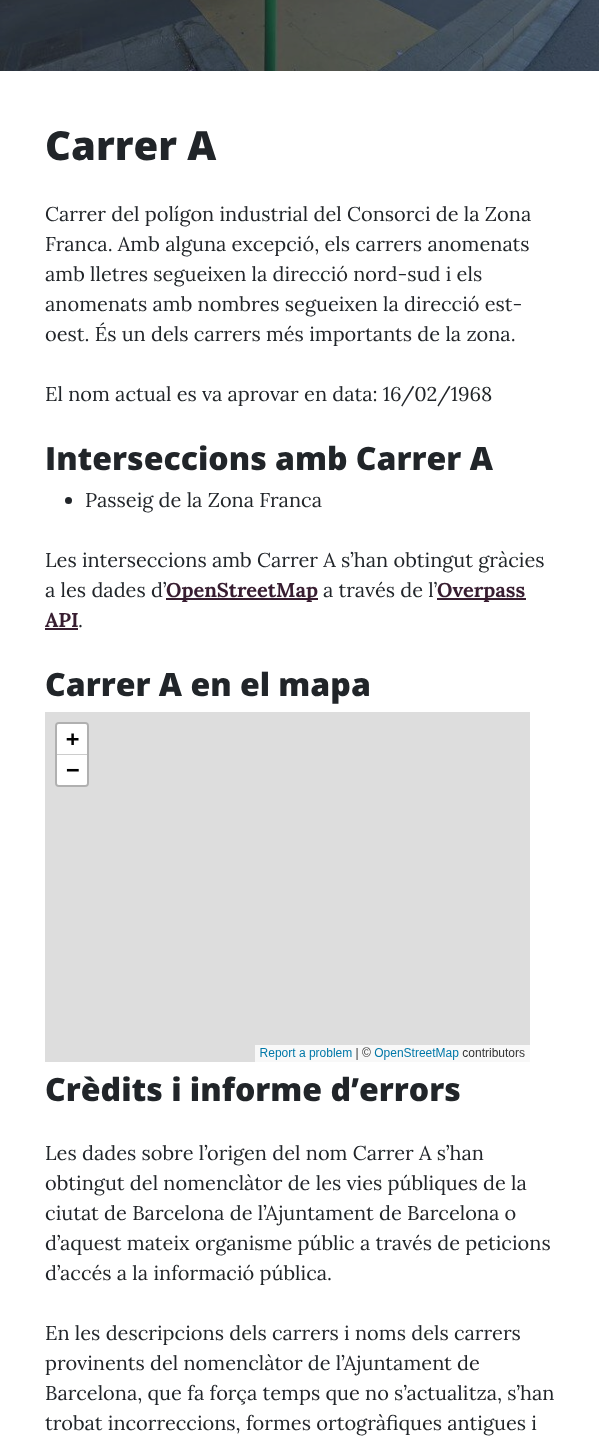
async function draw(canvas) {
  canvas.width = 599
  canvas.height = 1442
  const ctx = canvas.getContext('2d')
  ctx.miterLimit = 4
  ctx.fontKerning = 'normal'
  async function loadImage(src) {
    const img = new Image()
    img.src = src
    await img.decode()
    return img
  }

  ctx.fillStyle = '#fff'
  ctx.fillRect(0, 0, 599, 1442)
  ctx.drawImage(await loadImage('image0.png'), 0, 0, 599, 71)
  ctx.font = '800 40px Open Sans'
  ctx.fillStyle = '#212529'
  ctx.fillText('Carrer A', 45, 160)
  ctx.font = '20px Lora'
  ctx.fillText('Carrer del polígon industrial del Consorci de la Zona', 45, 221)
  ctx.fillText('Franca. Amb alguna excepció, els carrers anomenats', 45, 251)
  ctx.fillText('amb lletres segueixen la direcció nord-sud i els', 45, 281)
  ctx.fillText('anomenats amb nombres segueixen la direcció est-', 45, 311)
  ctx.fillText('oest. És un dels carrers més importants de la zona.', 45, 341)
  ctx.fillText('El nom actual es va aprovar en data: 16/02/1968', 45, 401)
  ctx.font = '800 32px Open Sans'
  ctx.fillText('Interseccions amb Carrer A', 45, 470)
  ctx.beginPath()
  ctx.arc(68.5, 500.5, 3.5, 0, 2 * Math.PI)
  ctx.fill()
  ctx.font = '20px Lora'
  ctx.fillText('Passeig de la Zona Franca', 85, 507)
  ctx.fillText('Les interseccions amb Carrer A s’han obtingut gràcies', 45, 567)
  ctx.fillText('a les dades d’', 45, 597)
  ctx.fillStyle = '#371d30'
  ctx.fillRect(166, 598, 152, 2)
  ctx.font = 'bold 20px Lora'
  ctx.fillText('OpenStreetMap', 166, 597)
  ctx.font = '20px Lora'
  ctx.fillStyle = '#212529'
  ctx.fillText('a través de l’', 323, 597)
  ctx.fillStyle = '#371d30'
  ctx.fillRect(437, 598, 89, 2)
  ctx.font = 'bold 20px Lora'
  ctx.fillText('Overpass', 437, 597)
  ctx.fillText('API', 45, 627)
  ctx.fillRect(45, 628, 33, 2)
  ctx.font = '20px Lora'
  ctx.fillStyle = '#212529'
  ctx.fillText('.', 78, 627)
  ctx.font = '800 32px Open Sans'
  ctx.fillText('Carrer A en el mapa', 45, 696)
  ctx.drawImage(await loadImage('image1.png'), 45, 712, 485, 350)
  ctx.fillText('Crèdits i informe d’errors', 45, 1101)
  ctx.font = '20px Lora'
  ctx.fillText('Les dades sobre l’origen del nom Carrer A s’han', 45, 1160)
  ctx.fillText('obtingut del nomenclàtor de les vies públiques de la', 45, 1190)
  ctx.fillText('ciutat de Barcelona de l’Ajuntament de Barcelona o', 45, 1220)
  ctx.fillText('d’aquest mateix organisme públic a través de peticions', 45, 1250)
  ctx.fillText('d’accés a la informació pública.', 45, 1280)
  ctx.fillText('En les descripcions dels carrers i noms dels carrers', 45, 1340)
  ctx.fillText('provinents del nomenclàtor de l’Ajuntament de', 45, 1370)
  ctx.fillText('Barcelona, que fa força temps que no s’actualitza, s’han', 45, 1400)
  ctx.fillText('trobat incorreccions, formes ortogràfiques antigues i', 45, 1430)
}

draw(document.querySelector('canvas'))
